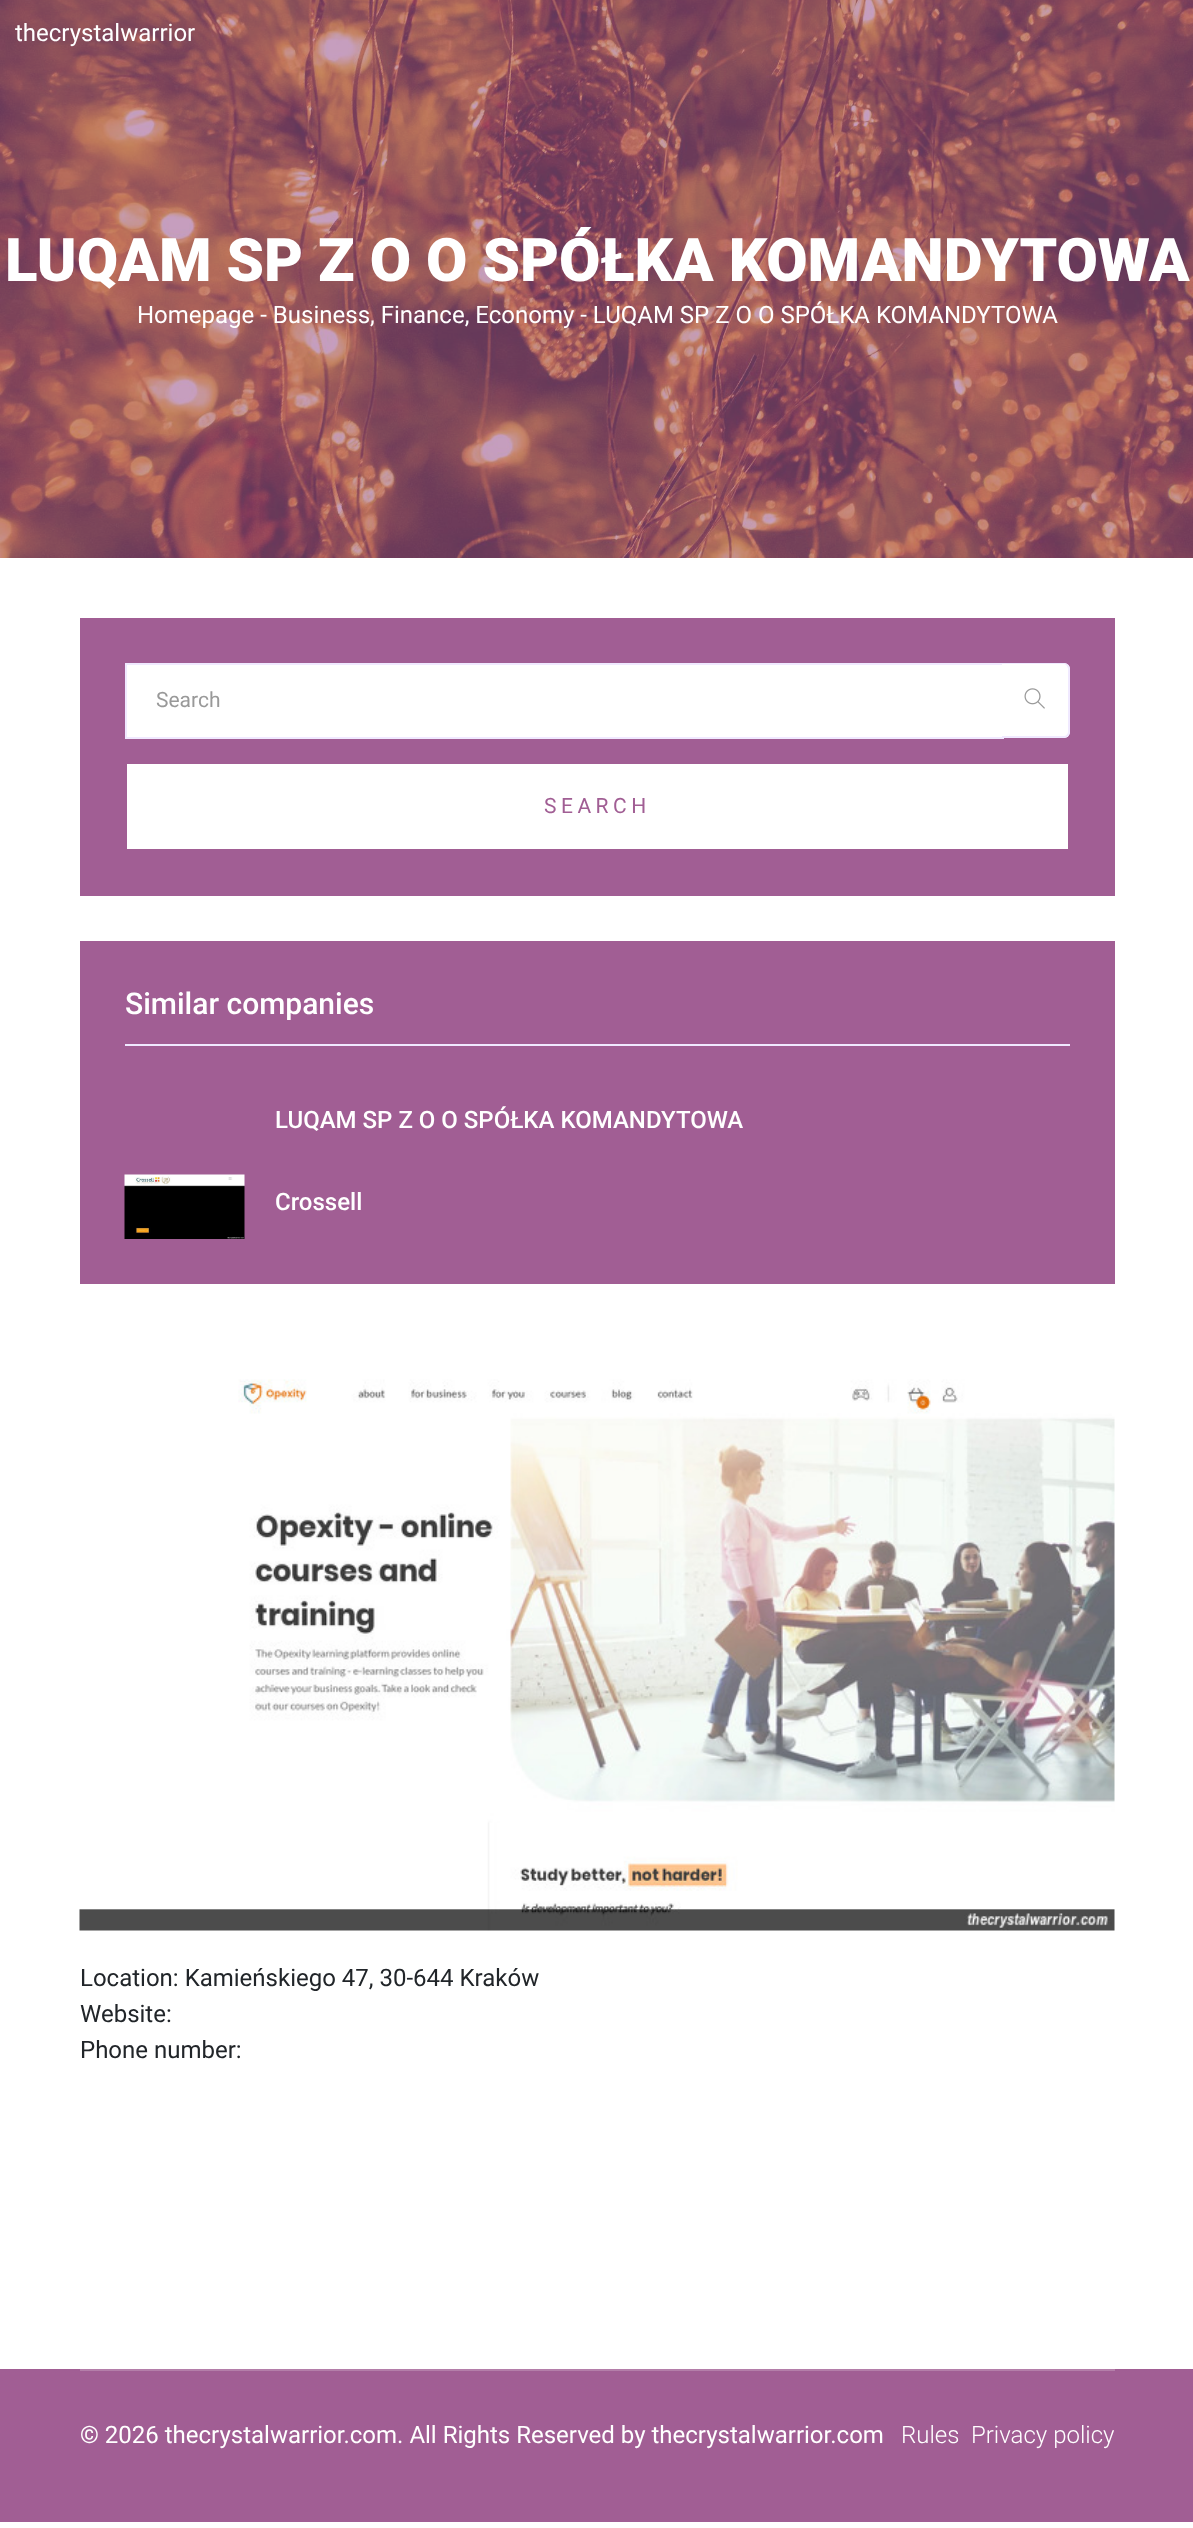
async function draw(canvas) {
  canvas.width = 1193
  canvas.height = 2528
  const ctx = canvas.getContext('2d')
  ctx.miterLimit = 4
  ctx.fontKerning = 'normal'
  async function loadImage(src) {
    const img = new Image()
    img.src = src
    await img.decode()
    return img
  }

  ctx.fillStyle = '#fff'
  ctx.fillRect(0, 0, 1193, 2528)
  ctx.drawImage(await loadImage('image0.png'), 0, 0, 1193, 558)
  ctx.font = '24px Roboto'
  ctx.fillText('thecrystalwarrior', 15, 41)
  ctx.font = '900 60px Roboto'
  ctx.fillText('LUQAM SP Z O O SPÓŁKA KOMANDYTOWA', 5, 281)
  ctx.font = '24px Roboto'
  ctx.fillText('Homepage - Business, Finance, Economy - LUQAM SP Z O O SPÓŁKA KOMANDYTOWA', 137, 323)
  ctx.fillStyle = '#a15e94'
  ctx.fillRect(80, 618, 1035, 278)
  ctx.fillStyle = '#fff'
  ctx.fillRect(127, 665, 875, 72)
  ctx.fillStyle = '#f0e9ff'
  ctx.fillRect(125, 663, 879, 2)
  ctx.fillRect(125, 737, 879, 2)
  ctx.fillRect(125, 663, 2, 75)
  ctx.font = '21px Roboto'
  ctx.fillStyle = '#999'
  ctx.fillText('Search', 156, 707)
  ctx.fillStyle = '#fff'
  ctx.beginPath()
  ctx.roundRect(1002, 663, 68, 75, [0, 6, 6, 0])
  ctx.fill()
  ctx.fillStyle = '#f0e9ff'
  ctx.beginPath()
  ctx.moveTo(1002, 663)
  ctx.lineTo(1064, 663)
  ctx.bezierCurveTo(1067, 663, 1070, 666, 1070, 669)
  ctx.lineTo(1070, 732)
  ctx.bezierCurveTo(1070, 735, 1067, 738, 1064, 738)
  ctx.lineTo(1002, 738)
  ctx.closePath()
  ctx.moveTo(1002, 664)
  ctx.lineTo(1064, 664)
  ctx.bezierCurveTo(1066, 664, 1068, 667, 1068, 669)
  ctx.lineTo(1068, 732)
  ctx.bezierCurveTo(1068, 734, 1066, 736, 1064, 736)
  ctx.lineTo(1002, 736)
  ctx.closePath()
  ctx.fill('evenodd')
  ctx.drawImage(await loadImage('image1.png'), 1024, 688, 21, 21)
  ctx.fillStyle = '#fff'
  ctx.fillRect(127, 764, 941, 85)
  ctx.letterSpacing = '4.5px'
  ctx.fillStyle = '#a15e94'
  ctx.fillText('SEARCH', 544, 813)
  ctx.fillRect(80, 941, 1035, 343)
  ctx.letterSpacing = '0px'
  ctx.font = '500 30px Roboto'
  ctx.fillStyle = '#fff'
  ctx.fillText('Similar companies', 125, 1014)
  ctx.fillStyle = '#f0e9ff'
  ctx.fillRect(125, 1044, 945, 2)
  ctx.font = '500 24px Roboto'
  ctx.fillStyle = '#fff'
  ctx.fillText('LUQAM SP Z O O SPÓŁKA KOMANDYTOWA', 275, 1128)
  ctx.drawImage(await loadImage('image2.png'), 124, 1174, 121, 65)
  ctx.fillText('Crossell', 275, 1210)
  ctx.drawImage(await loadImage('image3.png'), 79, 1379, 1036, 552)
  ctx.font = '24px Roboto'
  ctx.fillStyle = '#212529'
  ctx.fillText('Location: Kamieńskiego 47, 30-644 Kraków', 80, 1986)
  ctx.fillText('Website:', 80, 2022)
  ctx.fillText('Phone number:', 80, 2058)
  ctx.fillStyle = '#a15e94'
  ctx.fillRect(0, 2369, 1193, 153)
  ctx.fillStyle = '#b47ea9'
  ctx.fillRect(80, 2369, 1035, 2)
  ctx.fillStyle = '#fff'
  ctx.fillText('© 2026 thecrystalwarrior.com. All Rights Reserved by thecrystalwarrior.com', 80, 2443)
  ctx.font = '300 24px Roboto'
  ctx.fillText('Rules', 901, 2443)
  ctx.fillText('Privacy policy', 971, 2443)
}

draw(document.querySelector('canvas'))
